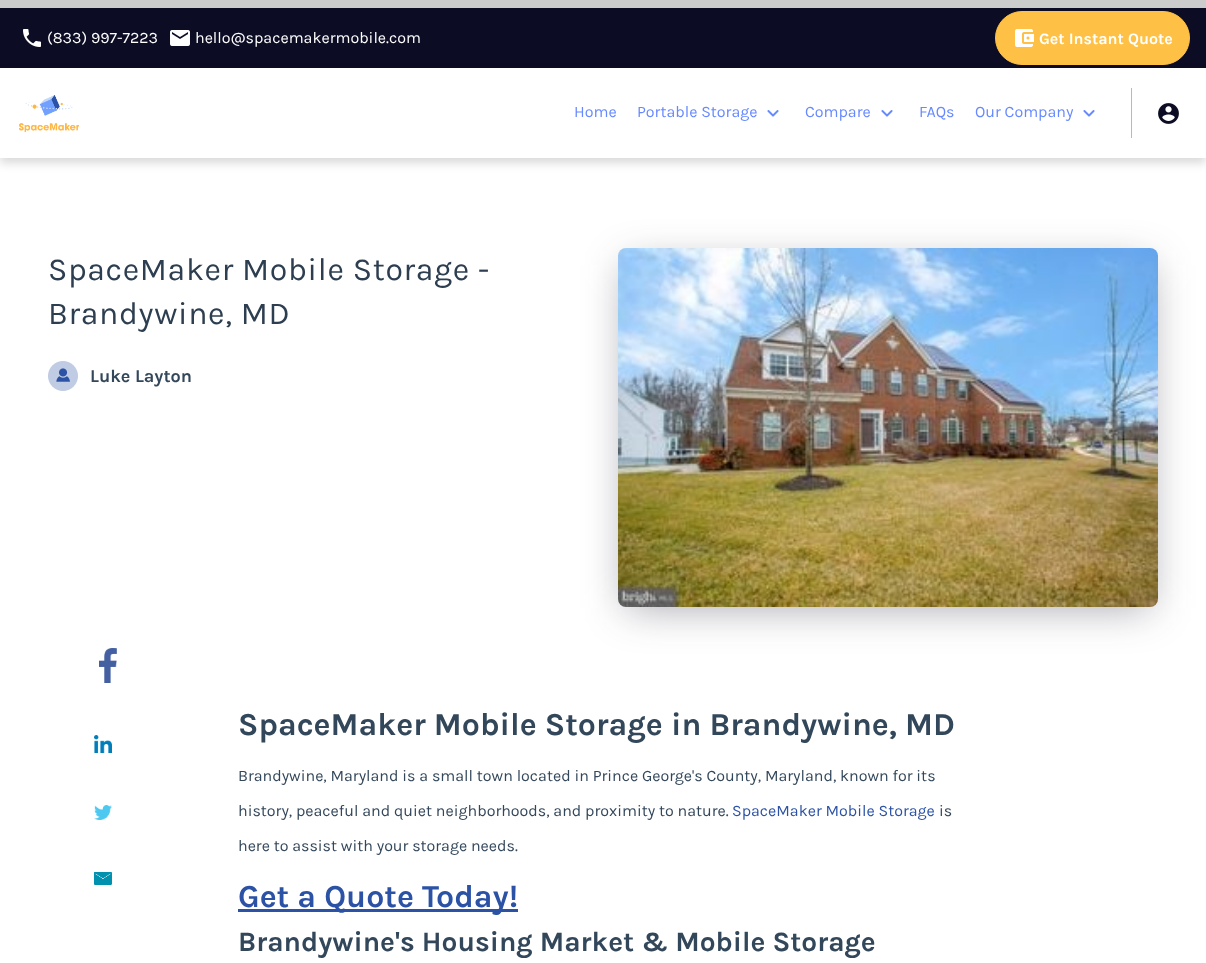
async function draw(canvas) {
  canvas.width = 1206
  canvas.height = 963
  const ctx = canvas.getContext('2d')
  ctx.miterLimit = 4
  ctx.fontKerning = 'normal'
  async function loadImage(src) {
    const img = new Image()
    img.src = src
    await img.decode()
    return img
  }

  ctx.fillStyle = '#fff'
  ctx.fillRect(0, 0, 1206, 963)
  ctx.fillStyle = '#0c0d24'
  ctx.fillRect(0, 8, 1206, 60)
  ctx.drawImage(await loadImage('image0.png'), 23, 29, 18, 18)
  ctx.font = '16px Karla'
  ctx.fillStyle = '#fff'
  ctx.fillText('(833) 997-7223', 47, 43)
  ctx.drawImage(await loadImage('image1.png'), 170, 30, 20, 16)
  ctx.fillText('hello@spacemakermobile.com', 195, 43)
  ctx.fillStyle = '#ffc145'
  ctx.beginPath()
  ctx.roundRect(995.5, 11.5, 194, 53, 26.5)
  ctx.fill()
  ctx.strokeStyle = '#ffc145'
  ctx.stroke()
  ctx.drawImage(await loadImage('image2.png'), 1015, 29, 19, 18)
  ctx.font = 'bold 16px Karla'
  ctx.fillStyle = '#fff'
  ctx.fillText('Get Instant Quote', 1039, 44)
  ctx.save()
  ctx.beginPath()
  ctx.moveTo(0, 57)
  ctx.lineTo(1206, 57)
  ctx.lineTo(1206, 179)
  ctx.lineTo(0, 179)
  ctx.closePath()
  ctx.moveTo(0, 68)
  ctx.lineTo(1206, 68)
  ctx.lineTo(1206, 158)
  ctx.lineTo(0, 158)
  ctx.closePath()
  ctx.clip('evenodd')
  ctx.fillStyle = '#00000026'
  ctx.filter = 'blur(5px)'
  ctx.beginPath()
  ctx.rect(0, 73, 1206, 90)
  ctx.fill()
  ctx.filter = 'none'
  ctx.restore()
  ctx.drawImage(await loadImage('image3.png'), 19, 95, 61, 37)
  ctx.font = '16px Karla'
  ctx.fillStyle = '#6689ff'
  ctx.fillText('Home', 574, 117)
  ctx.fillText('Portable Storage', 637, 117)
  ctx.drawImage(await loadImage('image4.png'), 767, 110, 12, 7)
  ctx.fillText('Compare', 805, 117)
  ctx.drawImage(await loadImage('image4.png'), 881, 110, 12, 7)
  ctx.fillText('FAQs', 919, 117)
  ctx.fillText('Our Company', 975, 117)
  ctx.drawImage(await loadImage('image4.png'), 1083, 110, 12, 7)
  ctx.fillStyle = '#aabadb'
  ctx.fillRect(1131, 88, 1, 50)
  ctx.drawImage(await loadImage('image5.png'), 1158, 103, 21, 21)
  ctx.fillStyle = '#ccc'
  ctx.fillRect(0, 0, 1206, 8)
  ctx.letterSpacing = '0.65px'
  ctx.font = '32px Karla'
  ctx.fillStyle = '#2d3e50'
  ctx.fillText('SpaceMaker Mobile Storage -', 48, 280)
  ctx.fillText('Brandywine, MD', 48, 324)
  ctx.drawImage(await loadImage('image6.png'), 48, 361, 30, 30)
  ctx.letterSpacing = '0px'
  ctx.font = 'bold 18px Karla'
  ctx.fillStyle = '#33475b'
  ctx.fillText('Luke Layton', 90, 382)
  ctx.fillStyle = '#25263a66'
  ctx.filter = 'blur(21px)'
  ctx.beginPath()
  ctx.rect(626, 265, 524, 343)
  ctx.fill()
  ctx.filter = 'none'
  ctx.drawImage(await loadImage('image7.png'), 618, 248, 540, 359)
  ctx.drawImage(await loadImage('image8.png'), 99, 648, 18, 35)
  ctx.drawImage(await loadImage('image9.png'), 94, 735, 18, 18)
  ctx.drawImage(await loadImage('image10.png'), 94, 805, 18, 15)
  ctx.drawImage(await loadImage('image11.png'), 94, 872, 18, 13)
  ctx.font = 'bold 32px Karla'
  ctx.fillStyle = '#33475b'
  ctx.fillText('SpaceMaker Mobile Storage in Brandywine, MD', 238, 735)
  ctx.font = '16px Karla'
  ctx.fillText('Brandywine, Maryland is a small town located in Prince George\'s County, Maryland, known for its', 238, 781)
  ctx.fillText('history, peaceful and quiet neighborhoods, and proximity to nature.', 238, 816)
  ctx.fillStyle = '#2b52a5'
  ctx.fillText('SpaceMaker Mobile Storage', 732, 816)
  ctx.fillStyle = '#33475b'
  ctx.fillText('is', 939, 816)
  ctx.fillText('here to assist with your storage needs.', 238, 851)
  ctx.fillStyle = '#2b52a5'
  ctx.fillRect(238, 909, 280, 3)
  ctx.font = 'bold 32px Karla'
  ctx.fillText('Get a Quote Today!', 238, 907)
  ctx.font = 'bold 28px Karla'
  ctx.fillStyle = '#33475b'
  ctx.fillText('Brandywine\'s Housing Market & Mobile Storage', 238, 951)
}

draw(document.querySelector('canvas'))
